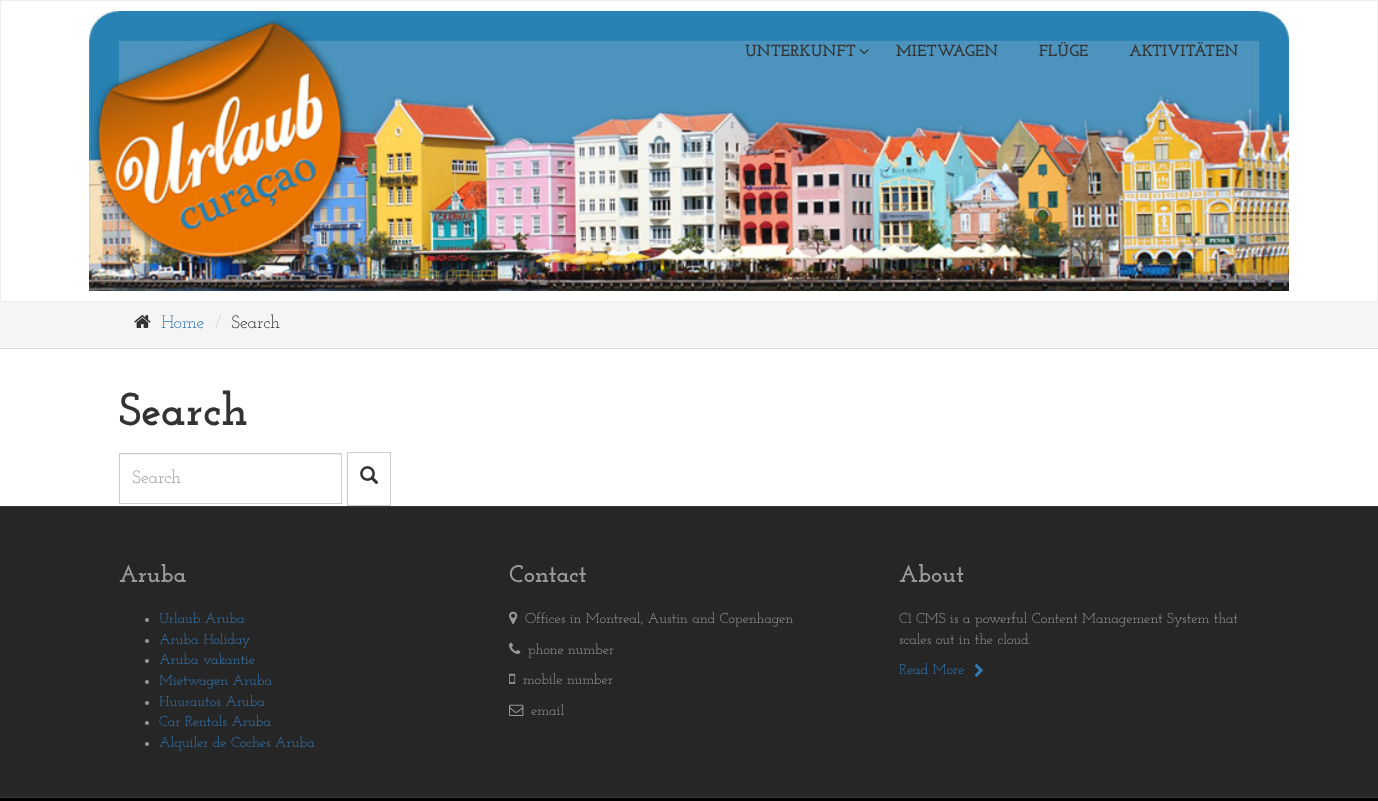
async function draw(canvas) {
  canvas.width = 1378
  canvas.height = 801
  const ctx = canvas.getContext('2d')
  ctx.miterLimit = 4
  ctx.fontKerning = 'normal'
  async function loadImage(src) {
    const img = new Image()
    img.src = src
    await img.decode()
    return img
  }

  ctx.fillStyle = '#fff'
  ctx.fillRect(0, 0, 1378, 801)
  ctx.strokeStyle = '#eee'
  ctx.strokeRect(0.5, 0.5, 1377, 301)
  ctx.drawImage(await loadImage('image0.png'), 89, 11, 1200, 280)
  ctx.font = 'bold 16.25px Josefin Slab'
  ctx.fillStyle = '#333'
  ctx.fillText('UNTERKUNFT', 745, 56)
  ctx.drawImage(await loadImage('image1.png'), 859, 49, 10, 6)
  ctx.fillText('MIETWAGEN', 896, 56)
  ctx.fillText('FLÜGE', 1039, 56)
  ctx.fillText('AKTIVITÄTEN', 1129, 56)
  ctx.fillStyle = '#f5f5f5'
  ctx.fillRect(0, 302, 1378, 46)
  ctx.fillStyle = '#dadada'
  ctx.fillRect(0, 348, 1378, 1)
  ctx.drawImage(await loadImage('image2.png'), 134, 315, 17, 13)
  ctx.font = '18px Josefin Slab'
  ctx.fillStyle = '#337ab7'
  ctx.fillText('Home', 161, 328)
  ctx.fillStyle = '#ccc'
  ctx.fillText('/', 215, 328)
  ctx.fillStyle = '#333'
  ctx.fillText('Search', 231, 328)
  ctx.font = 'bold 46px Josefin Slab'
  ctx.fillText('Search', 119, 425)
  ctx.fillStyle = '#ececec'
  ctx.fillRect(120, 454, 221, 1)
  ctx.strokeStyle = '#ccc'
  ctx.strokeRect(119.5, 453.5, 222, 50)
  ctx.font = '18px Josefin Slab'
  ctx.fillStyle = '#999'
  ctx.fillText('Search', 132, 483)
  ctx.strokeRect(347.5, 452.5, 43, 53)
  ctx.drawImage(await loadImage('image3.png'), 360, 466, 19, 19)
  ctx.fillStyle = '#262626'
  ctx.fillRect(0, 507, 1378, 290)
  ctx.fillStyle = '#3a3a3a'
  ctx.fillRect(0, 506, 1378, 1)
  ctx.fillRect(0, 797, 1378, 1)
  ctx.font = 'bold 24px Josefin Slab'
  ctx.fillStyle = '#999'
  ctx.fillText('Aruba', 119, 582)
  ctx.beginPath()
  ctx.arc(147, 620, 2, 0, 2 * Math.PI)
  ctx.fill()
  ctx.font = '14.4px Josefin Slab'
  ctx.fillStyle = '#337ab7'
  ctx.fillText('Urlaub Aruba', 159, 623)
  ctx.fillStyle = '#999'
  ctx.beginPath()
  ctx.arc(147, 641, 2, 0, 2 * Math.PI)
  ctx.fill()
  ctx.fillStyle = '#337ab7'
  ctx.fillText('Aruba Holiday', 159, 644)
  ctx.fillStyle = '#999'
  ctx.beginPath()
  ctx.arc(147, 661, 2, 0, 2 * Math.PI)
  ctx.fill()
  ctx.fillStyle = '#337ab7'
  ctx.fillText('Aruba vakantie', 159, 664)
  ctx.fillStyle = '#999'
  ctx.beginPath()
  ctx.arc(147, 682, 2, 0, 2 * Math.PI)
  ctx.fill()
  ctx.fillStyle = '#337ab7'
  ctx.fillText('Mietwagen Aruba', 159, 685)
  ctx.fillStyle = '#999'
  ctx.beginPath()
  ctx.arc(147, 703, 2, 0, 2 * Math.PI)
  ctx.fill()
  ctx.fillStyle = '#337ab7'
  ctx.fillText('Huurautos Aruba', 159, 706)
  ctx.fillStyle = '#999'
  ctx.beginPath()
  ctx.arc(147, 723, 2, 0, 2 * Math.PI)
  ctx.fill()
  ctx.fillStyle = '#337ab7'
  ctx.fillText('Car Rentals Aruba', 159, 726)
  ctx.fillStyle = '#999'
  ctx.beginPath()
  ctx.arc(147, 744, 2, 0, 2 * Math.PI)
  ctx.fill()
  ctx.fillStyle = '#337ab7'
  ctx.fillText('Alquiler de Coches Aruba', 159, 747)
  ctx.font = 'bold 24px Josefin Slab'
  ctx.fillStyle = '#999'
  ctx.fillText('Contact', 509, 582)
  ctx.drawImage(await loadImage('image4.png'), 509, 611, 9, 13)
  ctx.font = '14.4px Josefin Slab'
  ctx.fillText('Offices in Montreal, Austin and Copenhagen', 525, 623)
  ctx.drawImage(await loadImage('image5.png'), 509, 642, 12, 12)
  ctx.fillText('phone number', 528, 654)
  ctx.drawImage(await loadImage('image6.png'), 509, 673, 7, 11)
  ctx.fillText('mobile number', 523, 684)
  ctx.drawImage(await loadImage('image7.png'), 509, 704, 15, 12)
  ctx.fillText('email', 531, 715)
  ctx.font = 'bold 24px Josefin Slab'
  ctx.fillText('About', 899, 582)
  ctx.font = '14.4px Josefin Slab'
  ctx.fillText('C1 CMS is a powerful Content Management System that', 899, 623)
  ctx.fillText('scales out in the cloud.', 899, 644)
  ctx.fillStyle = '#337ab7'
  ctx.fillText('Read More', 899, 674)
  ctx.drawImage(await loadImage('image8.png'), 974, 663, 9, 14)
  ctx.fillStyle = '#000'
  ctx.fillRect(0, 798, 1378, 3)
}

draw(document.querySelector('canvas'))
